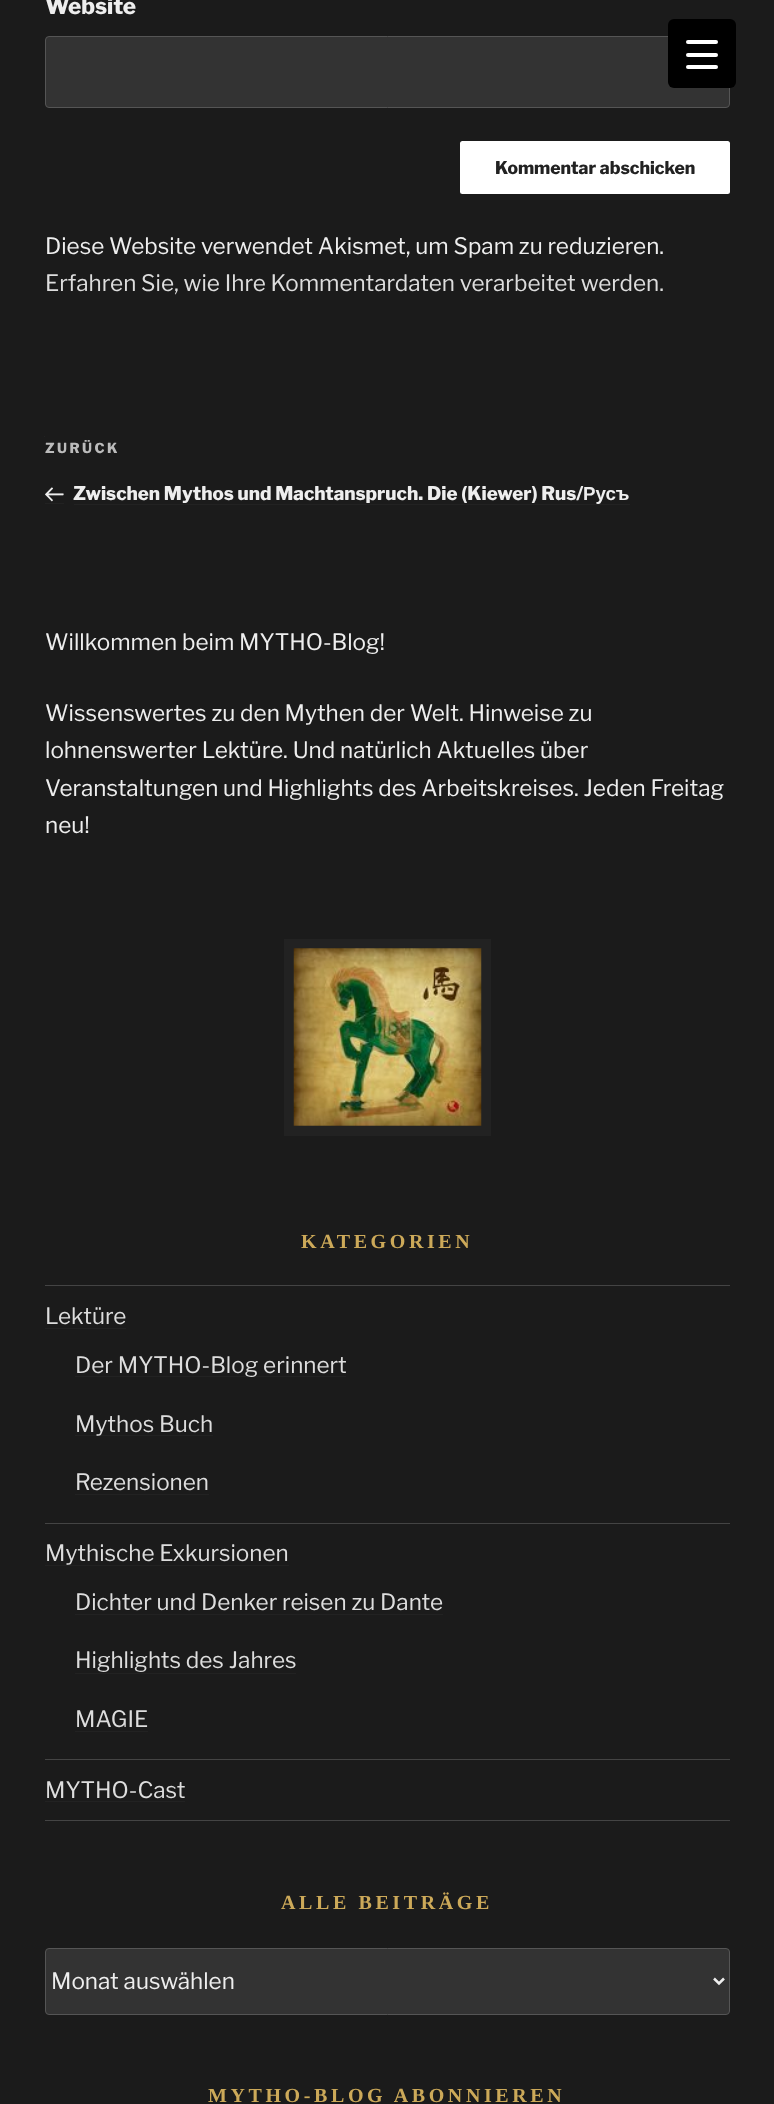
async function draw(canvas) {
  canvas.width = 774
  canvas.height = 2104
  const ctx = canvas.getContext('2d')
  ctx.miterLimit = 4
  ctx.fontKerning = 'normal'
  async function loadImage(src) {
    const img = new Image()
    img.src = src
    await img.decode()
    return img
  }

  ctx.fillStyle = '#1b1b1b'
  ctx.fillRect(0, 0, 774, 2104)
  ctx.font = '100 22.5px Libre Franklin'
  ctx.fillStyle = '#eee'
  ctx.fillText('Website', 45, 14)
  ctx.fillStyle = '#333'
  ctx.beginPath()
  ctx.roundRect(45.5, 36.5, 684, 71, 3.5)
  ctx.fill()
  ctx.strokeStyle = '#555'
  ctx.stroke()
  ctx.fillStyle = '#fff'
  ctx.beginPath()
  ctx.roundRect(460, 141, 270, 53, 2.5)
  ctx.fill()
  ctx.font = '100 17.5px Libre Franklin'
  ctx.fillStyle = '#222'
  ctx.fillText('Kommentar abschicken', 495, 174)
  ctx.font = '100 22.5px "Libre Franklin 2"'
  ctx.fillStyle = '#eee'
  ctx.fillText('Diese Website verwendet Akismet, um Spam zu reduzieren.', 45, 254)
  ctx.fillStyle = '#ddd'
  ctx.fillText('Erfahren Sie, wie Ihre Kommentardaten verarbeitet werden.', 45, 291)
  ctx.fillStyle = '#222'
  ctx.fillRect(44, 436, 1, 1)
  ctx.fillRect(45, 503, 19, 1)
  ctx.fillRect(74, 504, 556, 1)
  ctx.letterSpacing = '2.5px'
  ctx.font = '100 13.75px Libre Franklin'
  ctx.fillStyle = '#bbb'
  ctx.fillText('ZURÜCK', 45, 453)
  ctx.drawImage(await loadImage('image0.png'), 45, 487, 19, 15)
  ctx.letterSpacing = '0px'
  ctx.font = '100 18.75px Libre Franklin'
  ctx.fillStyle = '#eee'
  ctx.fillText('Zwischen Mythos und Machtanspruch. Die (Kiewer) Rus/', 73, 500)
  ctx.font = 'bold 18.75px Liberation Sans'
  ctx.fillText('Русъ', 583, 500)
  ctx.font = '100 22.5px "Libre Franklin 2"'
  ctx.fillText('Willkommen beim MYTHO-Blog!', 45, 650)
  ctx.fillText('Wissenswertes zu den Mythen der Welt. Hinweise zu', 45, 721)
  ctx.fillText('lohnenswerter Lektüre. Und natürlich Aktuelles über', 45, 758)
  ctx.fillText('Veranstaltungen und Highlights des Arbeitskreises. Jeden Freitag', 45, 796)
  ctx.fillText('neu!', 45, 833)
  ctx.strokeStyle = '#222'
  ctx.lineWidth = 10
  ctx.strokeRect(289, 944, 197, 187)
  ctx.drawImage(await loadImage('image1.png'), 293, 948, 189, 178)
  ctx.letterSpacing = '3.6px'
  ctx.font = 'bold 20px Liberation Serif'
  ctx.fillStyle = '#cca959'
  ctx.fillText('KATEGORIEN', 301, 1248)
  ctx.fillStyle = '#444'
  ctx.fillRect(45, 1285, 685, 1)
  ctx.fillRect(45, 1523, 685, 1)
  ctx.letterSpacing = '0px'
  ctx.font = '100 22.5px "Libre Franklin 2"'
  ctx.fillStyle = '#ddd'
  ctx.fillText('Lektüre', 45, 1324)
  ctx.fillStyle = '#222'
  ctx.fillRect(45, 1328, 81, 1)
  ctx.fillRect(75, 1376, 271, 1)
  ctx.fillStyle = '#ddd'
  ctx.fillText('Der MYTHO-Blog erinnert', 75, 1373)
  ctx.fillStyle = '#222'
  ctx.fillRect(75, 1435, 138, 1)
  ctx.fillStyle = '#ddd'
  ctx.fillText('Mythos Buch', 75, 1432)
  ctx.fillText('Rezensionen', 75, 1490)
  ctx.fillStyle = '#222'
  ctx.fillRect(75, 1494, 134, 1)
  ctx.fillStyle = '#444'
  ctx.fillRect(45, 1759, 685, 1)
  ctx.fillStyle = '#ddd'
  ctx.fillText('Mythische Exkursionen', 45, 1561)
  ctx.fillStyle = '#222'
  ctx.fillRect(45, 1565, 244, 1)
  ctx.fillStyle = '#ddd'
  ctx.fillText('Dichter und Denker reisen zu Dante', 75, 1610)
  ctx.fillStyle = '#222'
  ctx.fillRect(75, 1614, 368, 1)
  ctx.fillStyle = '#ddd'
  ctx.fillText('Highlights des Jahres', 75, 1668)
  ctx.fillStyle = '#222'
  ctx.fillRect(75, 1673, 221, 1)
  ctx.fillStyle = '#ddd'
  ctx.fillText('MAGIE', 75, 1727)
  ctx.fillStyle = '#222'
  ctx.fillRect(75, 1731, 73, 1)
  ctx.fillStyle = '#444'
  ctx.fillRect(45, 1820, 685, 1)
  ctx.fillStyle = '#ddd'
  ctx.fillText('MYTHO-Cast', 45, 1798)
  ctx.fillStyle = '#222'
  ctx.fillRect(45, 1801, 140, 1)
  ctx.letterSpacing = '3.6px'
  ctx.font = 'bold 20px Liberation Serif'
  ctx.fillStyle = '#cca959'
  ctx.fillText('ALLE BEITRÄGE', 281, 1909)
  ctx.fillStyle = '#333'
  ctx.beginPath()
  ctx.roundRect(45.5, 1948.5, 684, 66, 3.5)
  ctx.fill()
  ctx.strokeStyle = '#555'
  ctx.lineWidth = 1
  ctx.stroke()
  ctx.beginPath()
  ctx.moveTo(714, 1978.5)
  ctx.lineTo(719, 1983.5)
  ctx.lineTo(724, 1978.5)
  ctx.strokeStyle = '#eee'
  ctx.lineWidth = 2.5
  ctx.stroke()
  ctx.letterSpacing = '0px'
  ctx.font = '100 22.5px "Libre Franklin 2"'
  ctx.fillStyle = '#eee'
  ctx.fillText('Monat auswählen', 51, 1989)
  ctx.letterSpacing = '3.6px'
  ctx.font = 'bold 20px Liberation Serif'
  ctx.fillStyle = '#cca959'
  ctx.fillText('MYTHO-BLOG ABONNIEREN', 208, 2102)
  ctx.fillStyle = '#000'
  ctx.beginPath()
  ctx.roundRect(668, 19, 68, 69, 6)
  ctx.fill()
  ctx.fillStyle = '#fff'
  ctx.beginPath()
  ctx.roundRect(686, 53, 32, 4, 2)
  ctx.fill()
  ctx.beginPath()
  ctx.roundRect(686, 40, 32, 4, 2)
  ctx.fill()
  ctx.beginPath()
  ctx.roundRect(686, 65, 32, 4, 2)
  ctx.fill()
}

draw(document.querySelector('canvas'))
